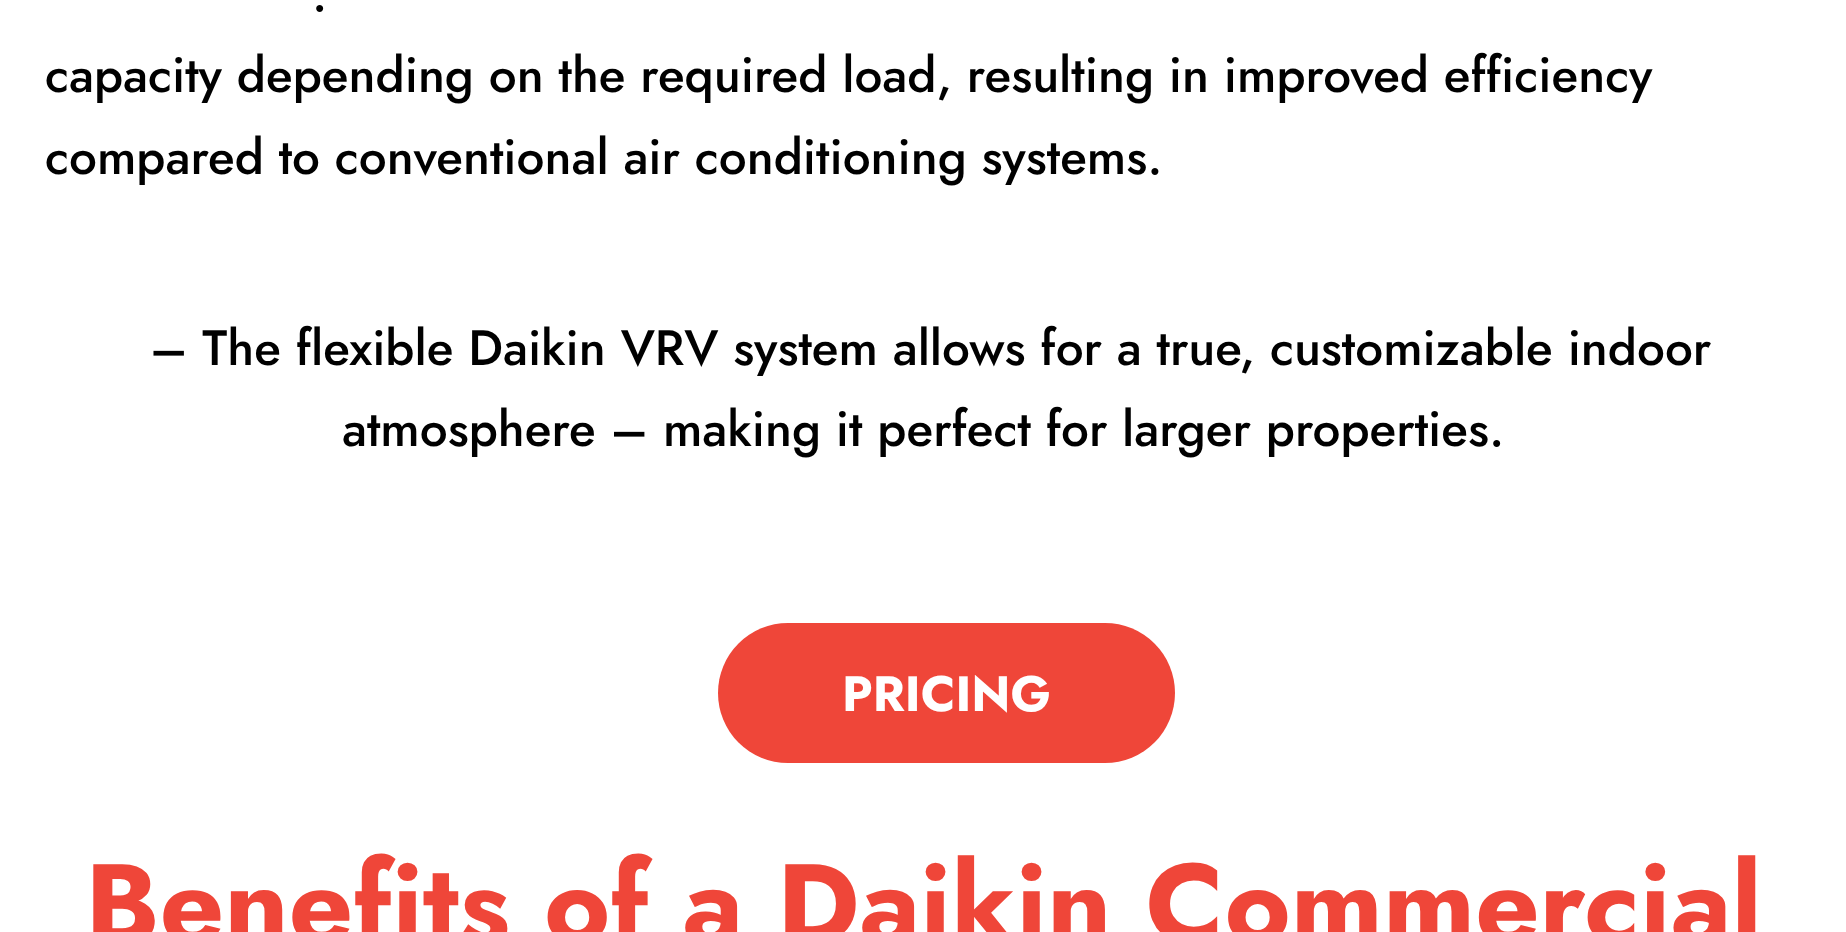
async function draw(canvas) {
  canvas.width = 1846
  canvas.height = 932
  const ctx = canvas.getContext('2d')
  ctx.miterLimit = 4
  ctx.fontKerning = 'normal'

  ctx.fillStyle = '#fff'
  ctx.fillRect(0, 0, 1846, 932)
  ctx.font = '500 49.5px Jost'
  ctx.fillStyle = '#000'
  ctx.fillText('.', 312, 11)
  ctx.fillText('capacity depending on the required load, resulting in improved efficiency', 45, 92)
  ctx.fillText('compared to conventional air conditioning systems.', 45, 174)
  ctx.fillText('– The flexible Daikin VRV system allows for a true, customizable indoor', 150, 365)
  ctx.fillText('atmosphere – making it perfect for larger properties.', 342, 446)
  ctx.fillStyle = '#ef4639'
  ctx.beginPath()
  ctx.roundRect(718, 623, 457, 140, 70)
  ctx.fill()
  ctx.font = 'bold 49.5px Jost'
  ctx.fillStyle = '#fff'
  ctx.fillText('PRICING', 842, 711)
  ctx.font = 'bold 112.5px Jost'
  ctx.fillStyle = '#ef4639'
  ctx.fillText('Benefits of a Daikin Commercial', 85, 943)
}

draw(document.querySelector('canvas'))
